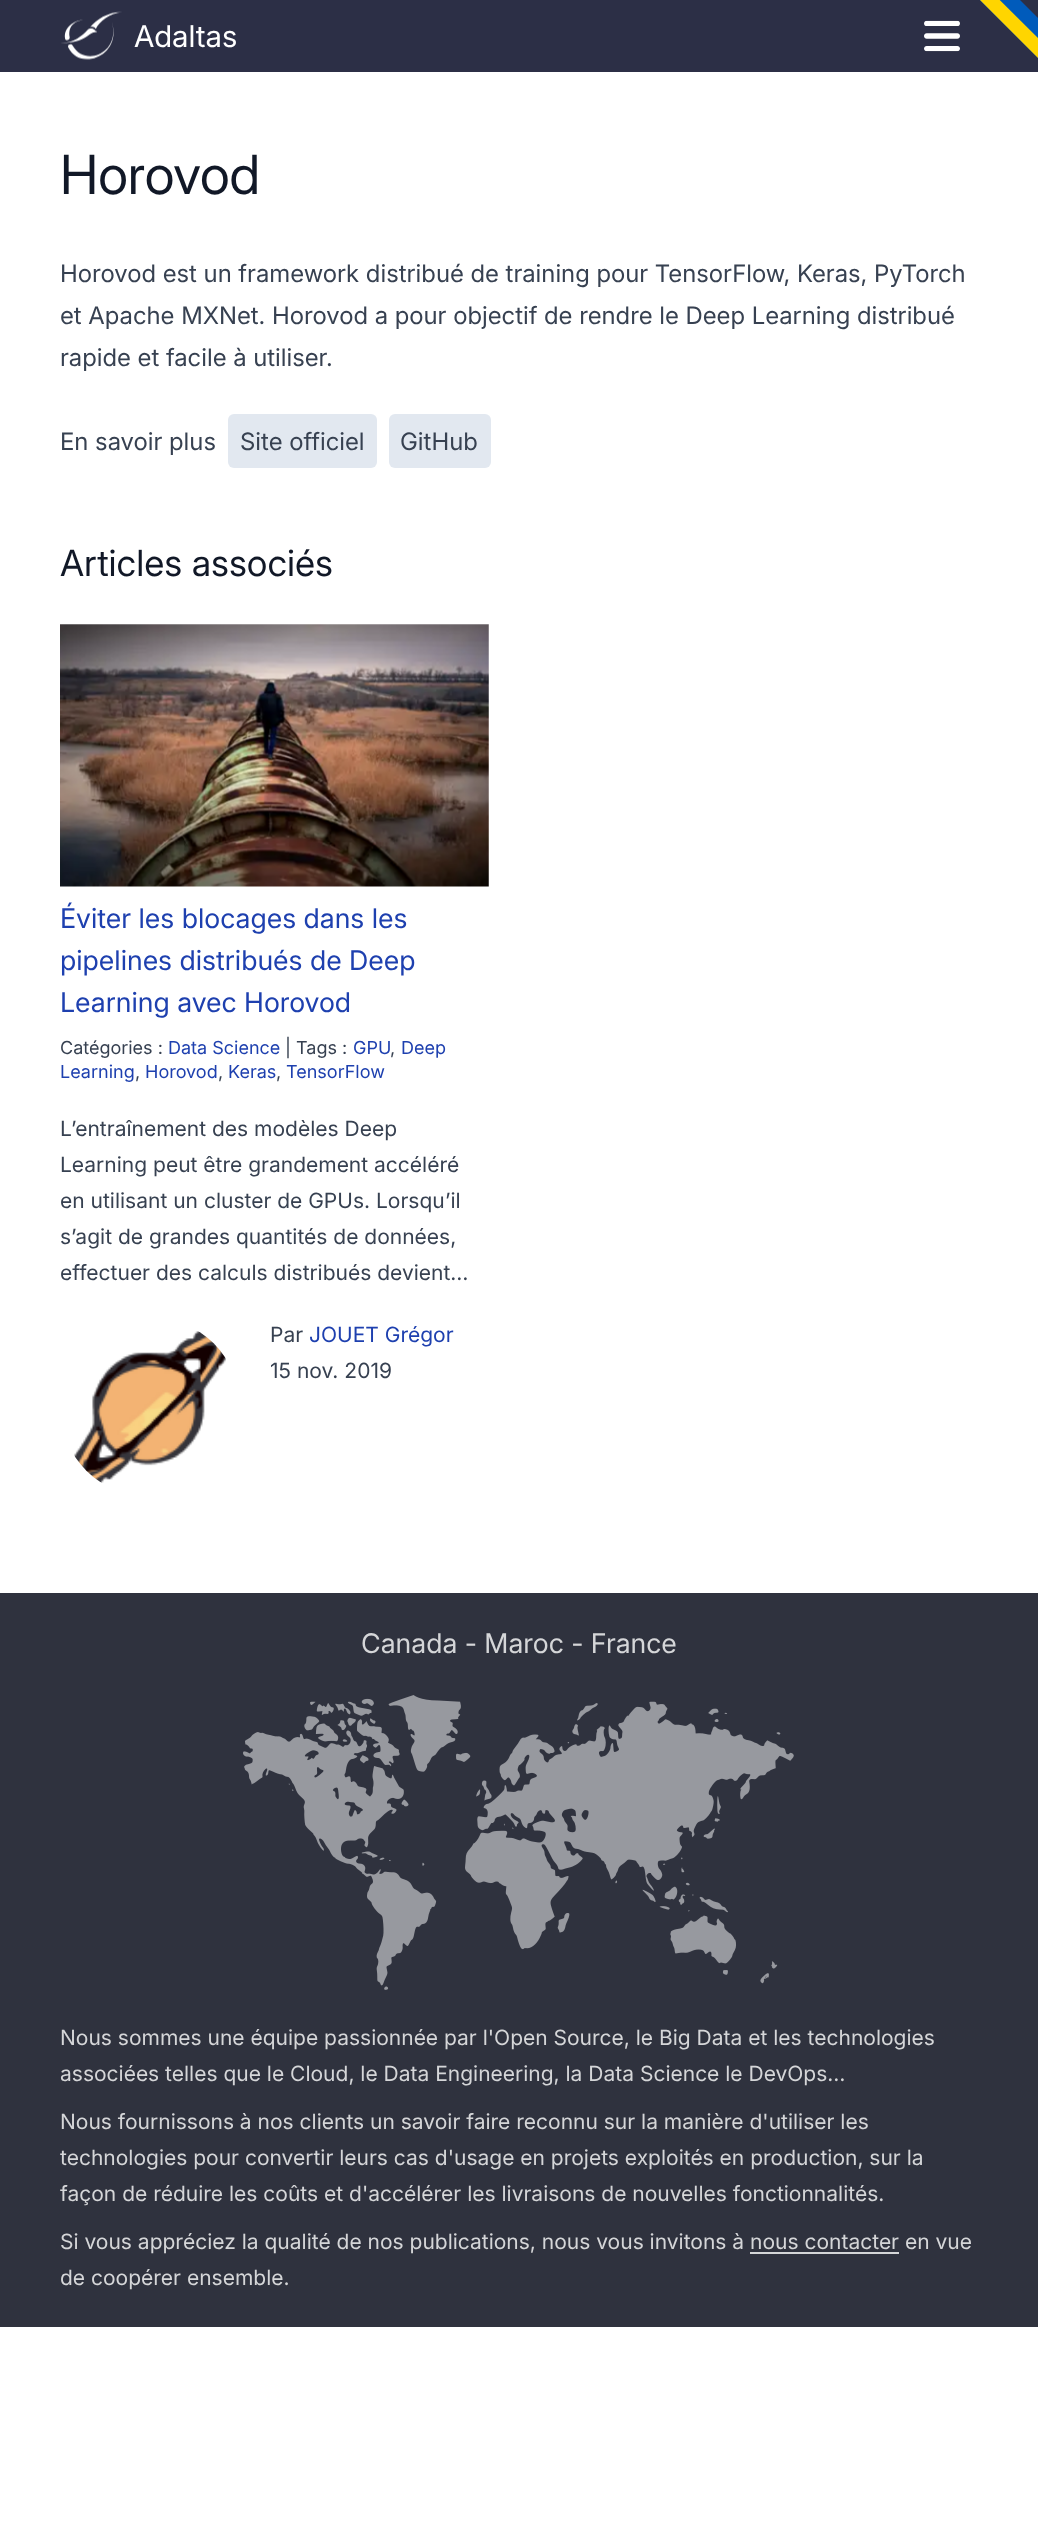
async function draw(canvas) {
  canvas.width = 1038
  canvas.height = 2545
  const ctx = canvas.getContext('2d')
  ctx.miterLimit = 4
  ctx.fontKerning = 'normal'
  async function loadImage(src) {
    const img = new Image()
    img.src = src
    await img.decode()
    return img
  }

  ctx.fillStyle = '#fff'
  ctx.fillRect(0, 0, 1038, 2545)
  ctx.fillStyle = '#2c2f46'
  ctx.fillRect(0, 0, 1038, 72)
  ctx.drawImage(await loadImage('image0.png'), 61, 11, 61, 49)
  ctx.font = '30px "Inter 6"'
  ctx.fillStyle = '#fff'
  ctx.fillText('Adaltas', 134, 47)
  ctx.drawImage(await loadImage('image1.png'), 924, 20, 36, 32)
  ctx.fillStyle = '#005bbb'
  ctx.beginPath()
  ctx.moveTo(862, -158)
  ctx.lineTo(842, -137)
  ctx.lineTo(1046, 66)
  ctx.lineTo(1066, 46)
  ctx.closePath()
  ctx.fill()
  ctx.fillStyle = '#ffd500'
  ctx.beginPath()
  ctx.moveTo(852, -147)
  ctx.lineTo(842, -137)
  ctx.lineTo(895, -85)
  ctx.lineTo(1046, 66)
  ctx.lineTo(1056, 56)
  ctx.closePath()
  ctx.fill()
  ctx.font = '54px "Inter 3"'
  ctx.fillStyle = '#111827'
  ctx.fillText('Horovod', 60, 194)
  ctx.font = '24px "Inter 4"'
  ctx.fillStyle = '#374151'
  ctx.fillText('Horovod est un framework distribué de training pour TensorFlow, Keras, PyTorch', 60, 282)
  ctx.fillText('et Apache MXNet. Horovod a pour objectif de rendre le Deep Learning distribué', 60, 324)
  ctx.fillText('rapide et facile à utiliser.', 60, 366)
  ctx.fillText('En savoir plus', 60, 450)
  ctx.fillStyle = '#e2e8f0'
  ctx.beginPath()
  ctx.roundRect(228, 414, 149, 54, 6)
  ctx.fill()
  ctx.fillStyle = '#374151'
  ctx.fillText('Site officiel', 240, 450)
  ctx.fillStyle = '#e2e8f0'
  ctx.beginPath()
  ctx.roundRect(389, 414, 102, 54, 6)
  ctx.fill()
  ctx.fillStyle = '#374151'
  ctx.fillText('GitHub', 400, 450)
  ctx.font = '36px "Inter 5"'
  ctx.fillStyle = '#111827'
  ctx.fillText('Articles associés', 60, 576)
  ctx.drawImage(await loadImage('image2.png'), 60, 624, 429, 263)
  ctx.font = '27px Inter'
  ctx.fillStyle = '#1e40af'
  ctx.fillText('Éviter les blocages dans les', 60, 928)
  ctx.fillText('pipelines distribués de Deep', 60, 970)
  ctx.fillText('Learning avec Horovod', 60, 1012)
  ctx.font = '18px "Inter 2"'
  ctx.fillStyle = '#374151'
  ctx.fillText('Catégories :', 60, 1054)
  ctx.fillStyle = '#1e40af'
  ctx.fillText('Data Science', 168, 1054)
  ctx.fillStyle = '#374151'
  ctx.fillText('| Tags :', 285, 1054)
  ctx.fillStyle = '#1e40af'
  ctx.fillText('GPU', 353, 1054)
  ctx.fillStyle = '#374151'
  ctx.fillText(',', 390, 1054)
  ctx.fillStyle = '#1e40af'
  ctx.fillText('Deep', 401, 1054)
  ctx.fillText('Learning', 60, 1078)
  ctx.fillStyle = '#374151'
  ctx.fillText(',', 135, 1078)
  ctx.fillStyle = '#1e40af'
  ctx.fillText('Horovod', 145, 1078)
  ctx.fillStyle = '#374151'
  ctx.fillText(',', 218, 1078)
  ctx.fillStyle = '#1e40af'
  ctx.fillText('Keras', 228, 1078)
  ctx.fillStyle = '#374151'
  ctx.fillText(',', 276, 1078)
  ctx.fillStyle = '#1e40af'
  ctx.fillText('TensorFlow', 286, 1078)
  ctx.font = '21px "Inter 2"'
  ctx.fillStyle = '#374151'
  ctx.fillText('L’entraînement des modèles Deep', 60, 1136)
  ctx.fillText('Learning peut être grandement accéléré', 60, 1172)
  ctx.fillText('en utilisant un cluster de GPUs. Lorsqu’il', 60, 1208)
  ctx.fillText('s’agit de grandes quantités de données,', 60, 1244)
  ctx.fillText('effectuer des calculs distribués devient…', 60, 1280)
  ctx.drawImage(await loadImage('image3.png'), 74, 1331, 152, 152)
  ctx.fillText('Par', 270, 1342)
  ctx.fillStyle = '#1e40af'
  ctx.fillText('JOUET Grégor', 309, 1342)
  ctx.fillStyle = '#374151'
  ctx.fillText('15 nov. 2019', 270, 1378)
  ctx.fillStyle = '#2f323e'
  ctx.fillRect(0, 1593, 1038, 734)
  ctx.font = '27px Inter'
  ctx.fillStyle = '#d5d6d8'
  ctx.fillText('Canada - Maroc - France', 361, 1653)
  ctx.drawImage(await loadImage('image4.png'), 243, 1695, 551, 295)
  ctx.font = '21px "Inter 2"'
  ctx.fillText('Nous sommes une équipe passionnée par l\'Open Source, le Big Data et les technologies', 60, 2045)
  ctx.fillText('associées telles que le Cloud, le Data Engineering, la Data Science le DevOps…', 60, 2081)
  ctx.fillText('Nous fournissons à nos clients un savoir faire reconnu sur la manière d\'utiliser les', 60, 2129)
  ctx.fillText('technologies pour convertir leurs cas d\'usage en projets exploités en production, sur la', 60, 2165)
  ctx.fillText('façon de réduire les coûts et d\'accélérer les livraisons de nouvelles fonctionnalités.', 60, 2201)
  ctx.fillText('Si vous appréciez la qualité de nos publications, nous vous invitons à nous contacter en vue', 60, 2249)
  ctx.fillRect(750, 2252, 149, 2)
  ctx.fillText('de coopérer ensemble.', 60, 2285)
}

draw(document.querySelector('canvas'))
